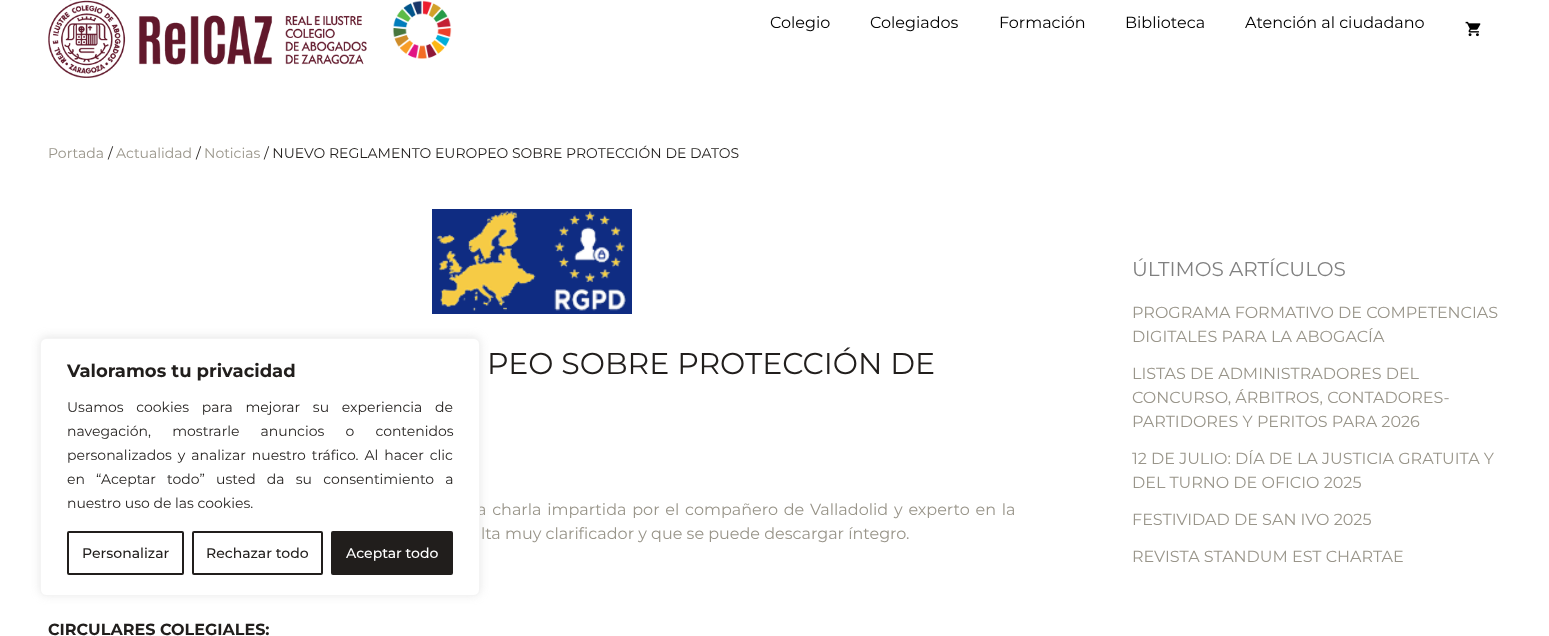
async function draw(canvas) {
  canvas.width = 1549
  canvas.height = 636
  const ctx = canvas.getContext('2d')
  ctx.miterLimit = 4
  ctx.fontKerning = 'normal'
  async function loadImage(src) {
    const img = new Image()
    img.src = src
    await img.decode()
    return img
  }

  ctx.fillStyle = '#fff'
  ctx.fillRect(0, 0, 1549, 636)
  ctx.drawImage(await loadImage('image0.png'), 48, 0, 319, 78)
  ctx.drawImage(await loadImage('image1.png'), 392, 0, 60, 59)
  ctx.font = '16px Montserrat'
  ctx.fillStyle = '#000'
  ctx.fillText('Colegio', 770, 28)
  ctx.fillText('Colegiados', 870, 28)
  ctx.fillText('Formación', 999, 28)
  ctx.fillText('Biblioteca', 1125, 28)
  ctx.fillText('Atención al ciudadano', 1245, 28)
  ctx.drawImage(await loadImage('image2.png'), 1465, 21, 16, 16)
  ctx.font = '14px Montserrat'
  ctx.fillStyle = '#99958a'
  ctx.fillText('Portada', 48, 158)
  ctx.fillStyle = '#211e1c'
  ctx.fillText('/', 108, 158)
  ctx.fillStyle = '#99958a'
  ctx.fillText('Actualidad', 116, 158)
  ctx.fillStyle = '#211e1c'
  ctx.fillText('/', 196, 158)
  ctx.fillStyle = '#99958a'
  ctx.fillText('Noticias', 204, 158)
  ctx.fillStyle = '#211e1c'
  ctx.fillText('/ NUEVO REGLAMENTO EUROPEO SOBRE PROTECCIÓN DE DATOS', 264, 158)
  ctx.drawImage(await loadImage('image3.png'), 432, 209, 200, 105)
  ctx.font = '30px Montserrat'
  ctx.fillText('PEO SOBRE PROTECCIÓN DE', 487, 374)
  ctx.wordSpacing = '1.6px'
  ctx.font = '16px Montserrat'
  ctx.fillStyle = '#99958a'
  ctx.fillText('a charla impartida por el compañero de Valladolid y experto en la', 477, 515)
  ctx.wordSpacing = '0px'
  ctx.fillText('lta muy clarificador y que se puede descargar íntegro.', 481, 539)
  ctx.font = 'bold 16px Montserrat'
  ctx.fillStyle = '#211e1c'
  ctx.fillText('CIRCULARES COLEGIALES:', 48, 635)
  ctx.font = '20px Montserrat'
  ctx.fillStyle = '#808080'
  ctx.fillText('ÚLTIMOS ARTÍCULOS', 1132, 276)
  ctx.font = '16px Montserrat'
  ctx.fillStyle = '#99958a'
  ctx.fillText('PROGRAMA FORMATIVO DE COMPETENCIAS', 1132, 318)
  ctx.fillText('DIGITALES PARA LA ABOGACÍA', 1132, 342)
  ctx.fillText('LISTAS DE ADMINISTRADORES DEL', 1132, 379)
  ctx.fillText('CONCURSO, ÁRBITROS, CONTADORES-', 1132, 403)
  ctx.fillText('PARTIDORES Y PERITOS PARA 2026', 1132, 427)
  ctx.fillText('12 DE JULIO: DÍA DE LA JUSTICIA GRATUITA Y', 1132, 464)
  ctx.fillText('DEL TURNO DE OFICIO 2025', 1132, 488)
  ctx.fillText('FESTIVIDAD DE SAN IVO 2025', 1132, 525)
  ctx.fillText('REVISTA STANDUM EST CHARTAE', 1132, 562)
  ctx.fillStyle = '#acabab4d'
  ctx.filter = 'blur(5px)'
  ctx.beginPath()
  ctx.roundRect(40, 337, 440, 258, 6)
  ctx.fill()
  ctx.filter = 'none'
  ctx.fillStyle = '#fff'
  ctx.beginPath()
  ctx.roundRect(40.5, 338.5, 439, 257, 5.5)
  ctx.fill()
  ctx.strokeStyle = '#f4f4f4'
  ctx.stroke()
  ctx.font = 'bold 18px Montserrat'
  ctx.fillStyle = '#211e1c'
  ctx.fillText('Valoramos tu privacidad', 67, 377)
  ctx.wordSpacing = '9px'
  ctx.font = '14px Montserrat'
  ctx.fillText('Usamos cookies para mejorar su experiencia de', 67, 412)
  ctx.wordSpacing = '17.5px'
  ctx.fillText('navegación, mostrarle anuncios o contenidos', 67, 436)
  ctx.wordSpacing = '2.25px'
  ctx.fillText('personalizados y analizar nuestro tráfico. Al hacer clic', 67, 460)
  ctx.wordSpacing = '7.5px'
  ctx.fillText('en “Aceptar todo” usted da su consentimiento a', 67, 484)
  ctx.wordSpacing = '0px'
  ctx.fillText('nuestro uso de las cookies.', 67, 508)
  ctx.beginPath()
  ctx.roundRect(68, 532, 115, 42, 1)
  ctx.strokeStyle = '#211e1c'
  ctx.lineWidth = 2
  ctx.stroke()
  ctx.font = '500 14px Montserrat'
  ctx.fillText('Personalizar', 82, 558)
  ctx.beginPath()
  ctx.roundRect(193, 532, 129, 42, 1)
  ctx.stroke()
  ctx.fillText('Rechazar todo', 206, 558)
  ctx.beginPath()
  ctx.roundRect(332, 532, 120, 42, 1)
  ctx.fill()
  ctx.stroke()
  ctx.fillStyle = '#fff'
  ctx.fillText('Aceptar todo', 346, 558)
}

draw(document.querySelector('canvas'))
